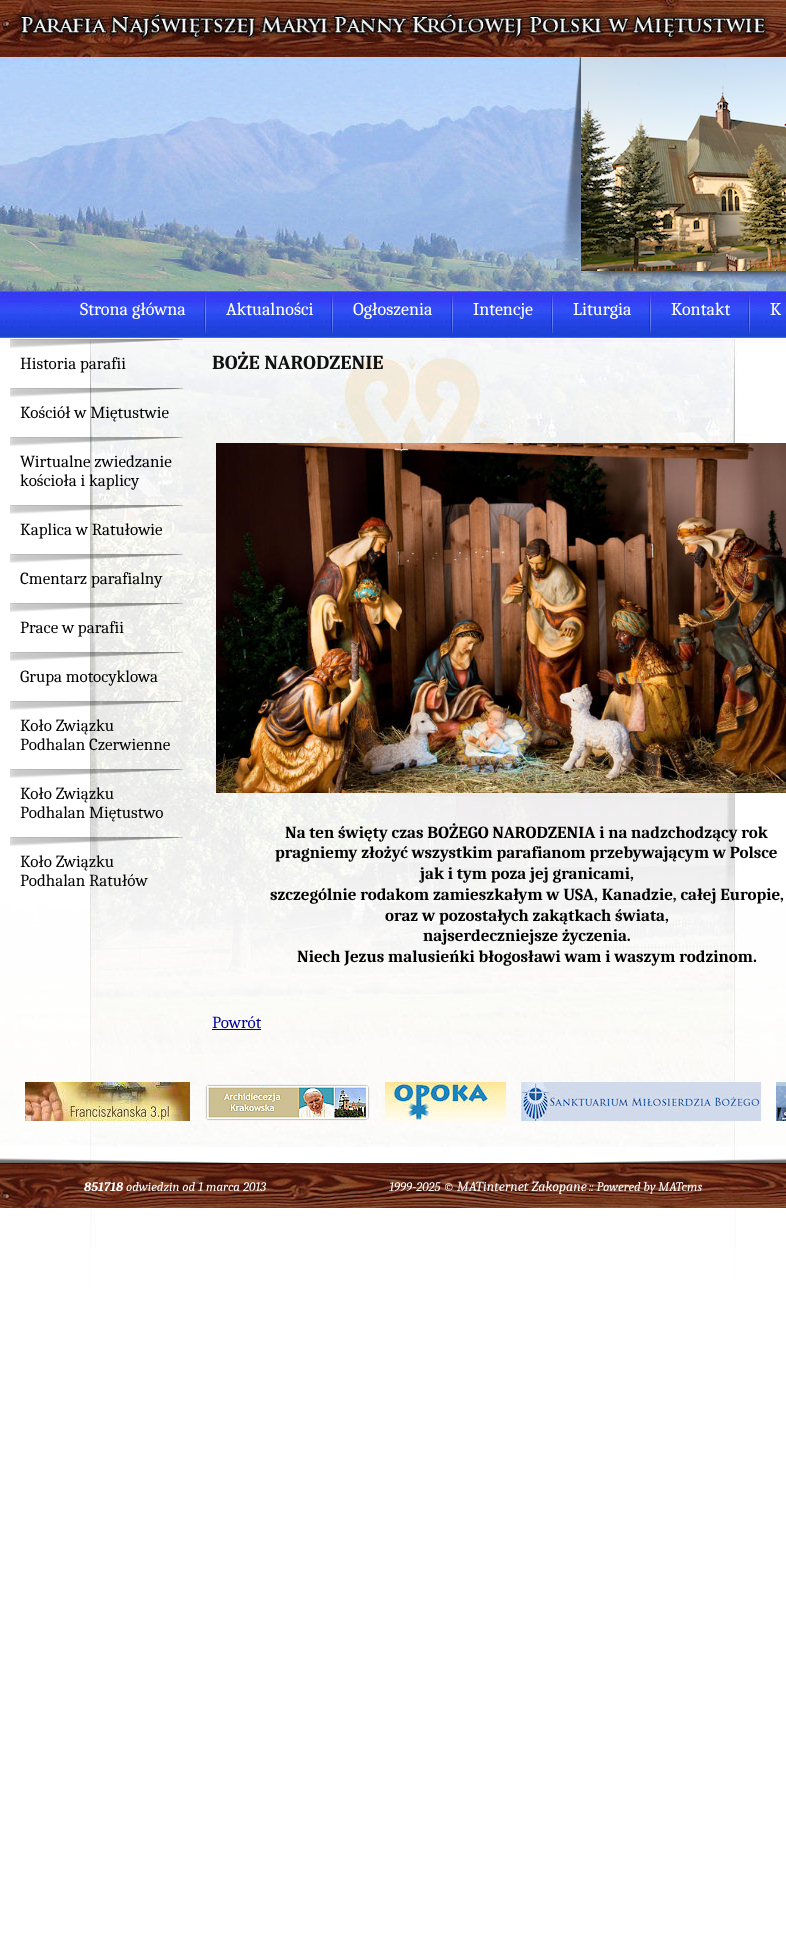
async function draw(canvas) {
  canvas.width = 786
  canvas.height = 1938
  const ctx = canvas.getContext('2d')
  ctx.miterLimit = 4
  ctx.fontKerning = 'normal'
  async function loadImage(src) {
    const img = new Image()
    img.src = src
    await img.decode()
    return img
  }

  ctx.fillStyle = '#fff'
  ctx.fillRect(0, 0, 786, 1938)
  ctx.drawImage(await loadImage('image0.png'), 0, 0, 786, 1938)
  ctx.drawImage(await loadImage('image1.png'), 561, 57, 225, 233)
  ctx.drawImage(await loadImage('image2.png'), 204, 295, 2, 38)
  ctx.font = '18px Caladea'
  ctx.fillText('Strona główna', 80, 315)
  ctx.drawImage(await loadImage('image3.png'), 331, 295, 2, 38)
  ctx.fillText('Aktualności', 226, 315)
  ctx.drawImage(await loadImage('image4.png'), 451, 295, 2, 38)
  ctx.fillText('Ogłoszenia', 353, 315)
  ctx.drawImage(await loadImage('image5.png'), 551, 295, 2, 38)
  ctx.fillText('Intencje', 473, 315)
  ctx.drawImage(await loadImage('image6.png'), 649, 295, 2, 38)
  ctx.fillText('Liturgia', 573, 315)
  ctx.drawImage(await loadImage('image7.png'), 748, 295, 2, 38)
  ctx.fillText('Kontakt', 671, 315)
  ctx.fillText('K', 770, 315)
  ctx.drawImage(await loadImage('image8.png'), 10, 339, 173, 9)
  ctx.font = '17px Caladea'
  ctx.fillStyle = '#000'
  ctx.fillText('Historia parafii', 20, 369)
  ctx.drawImage(await loadImage('image9.png'), 10, 388, 173, 9)
  ctx.fillText('Kościół w Miętustwie', 20, 418)
  ctx.drawImage(await loadImage('image10.png'), 10, 437, 173, 9)
  ctx.fillText('Wirtualne zwiedzanie', 20, 467)
  ctx.fillText('kościoła i kaplicy', 20, 486)
  ctx.drawImage(await loadImage('image11.png'), 10, 505, 173, 9)
  ctx.fillText('Kaplica w Ratułowie', 20, 535)
  ctx.drawImage(await loadImage('image12.png'), 10, 554, 173, 9)
  ctx.fillText('Cmentarz parafialny', 20, 584)
  ctx.drawImage(await loadImage('image13.png'), 10, 603, 173, 9)
  ctx.fillText('Prace w parafii', 20, 633)
  ctx.drawImage(await loadImage('image14.png'), 10, 652, 173, 9)
  ctx.fillText('Grupa motocyklowa', 20, 682)
  ctx.drawImage(await loadImage('image15.png'), 10, 701, 173, 9)
  ctx.fillText('Koło Związku', 20, 731)
  ctx.fillText('Podhalan Czerwienne', 20, 750)
  ctx.drawImage(await loadImage('image16.png'), 10, 769, 173, 9)
  ctx.fillText('Koło Związku', 20, 799)
  ctx.fillText('Podhalan Miętustwo', 20, 818)
  ctx.drawImage(await loadImage('image17.png'), 10, 837, 173, 9)
  ctx.fillText('Koło Związku', 20, 867)
  ctx.fillText('Podhalan Ratułów', 20, 886)
  ctx.font = 'bold 20px Caladea'
  ctx.fillStyle = '#111'
  ctx.fillText('BOŻE NARODZENIE', 212, 369)
  ctx.drawImage(await loadImage('image18.png'), 216, 443, 570, 350)
  ctx.font = 'bold 17px Caladea'
  ctx.fillStyle = '#000'
  ctx.fillText('Na ten święty czas BOŻEGO NARODZENIA i na nadzchodzący rok', 285, 838)
  ctx.fillText('pragniemy złożyć wszystkim parafianom przebywającym w Polsce', 275, 858)
  ctx.fillText('jak i tym poza jej granicami,', 420, 879)
  ctx.fillText('szczególnie rodakom zamieszkałym w USA, Kanadzie, całej Europie,', 270, 900)
  ctx.fillText('oraz w pozostałych zakątkach świata,', 385, 921)
  ctx.fillText('najserdeczniejsze życzenia.', 423, 941)
  ctx.fillText('Niech Jezus malusieńki błogosławi wam i waszym rodzinom.', 297, 962)
  ctx.font = '17px Caladea'
  ctx.fillStyle = '#009'
  ctx.fillText('Powrót', 212, 1028)
  ctx.fillRect(212, 1029, 49, 1)
  ctx.drawImage(await loadImage('image19.png'), 25, 1082, 165, 39)
  ctx.drawImage(await loadImage('image20.png'), 205, 1084, 165, 37)
  ctx.drawImage(await loadImage('image21.png'), 385, 1082, 121, 39)
  ctx.drawImage(await loadImage('image22.png'), 521, 1082, 240, 39)
  ctx.drawImage(await loadImage('image23.png'), 776, 1082, 10, 39)
  ctx.drawImage(await loadImage('image24.png'), 0, 1158, 786, 50)
  ctx.font = 'italic bold 13px Caladea'
  ctx.fillStyle = '#fff'
  ctx.fillText('851718', 84, 1191)
  ctx.font = 'italic 13px Caladea'
  ctx.fillText('odwiedzin od 1 marca 2013                                           1999-2025 ©', 126, 1191)
  ctx.font = 'italic 14px Caladea'
  ctx.fillText('MATinternet Zakopane', 457, 1191)
  ctx.font = 'italic 13px Caladea'
  ctx.fillText(':: Powered by MATcms', 589, 1191)
}

draw(document.querySelector('canvas'))
